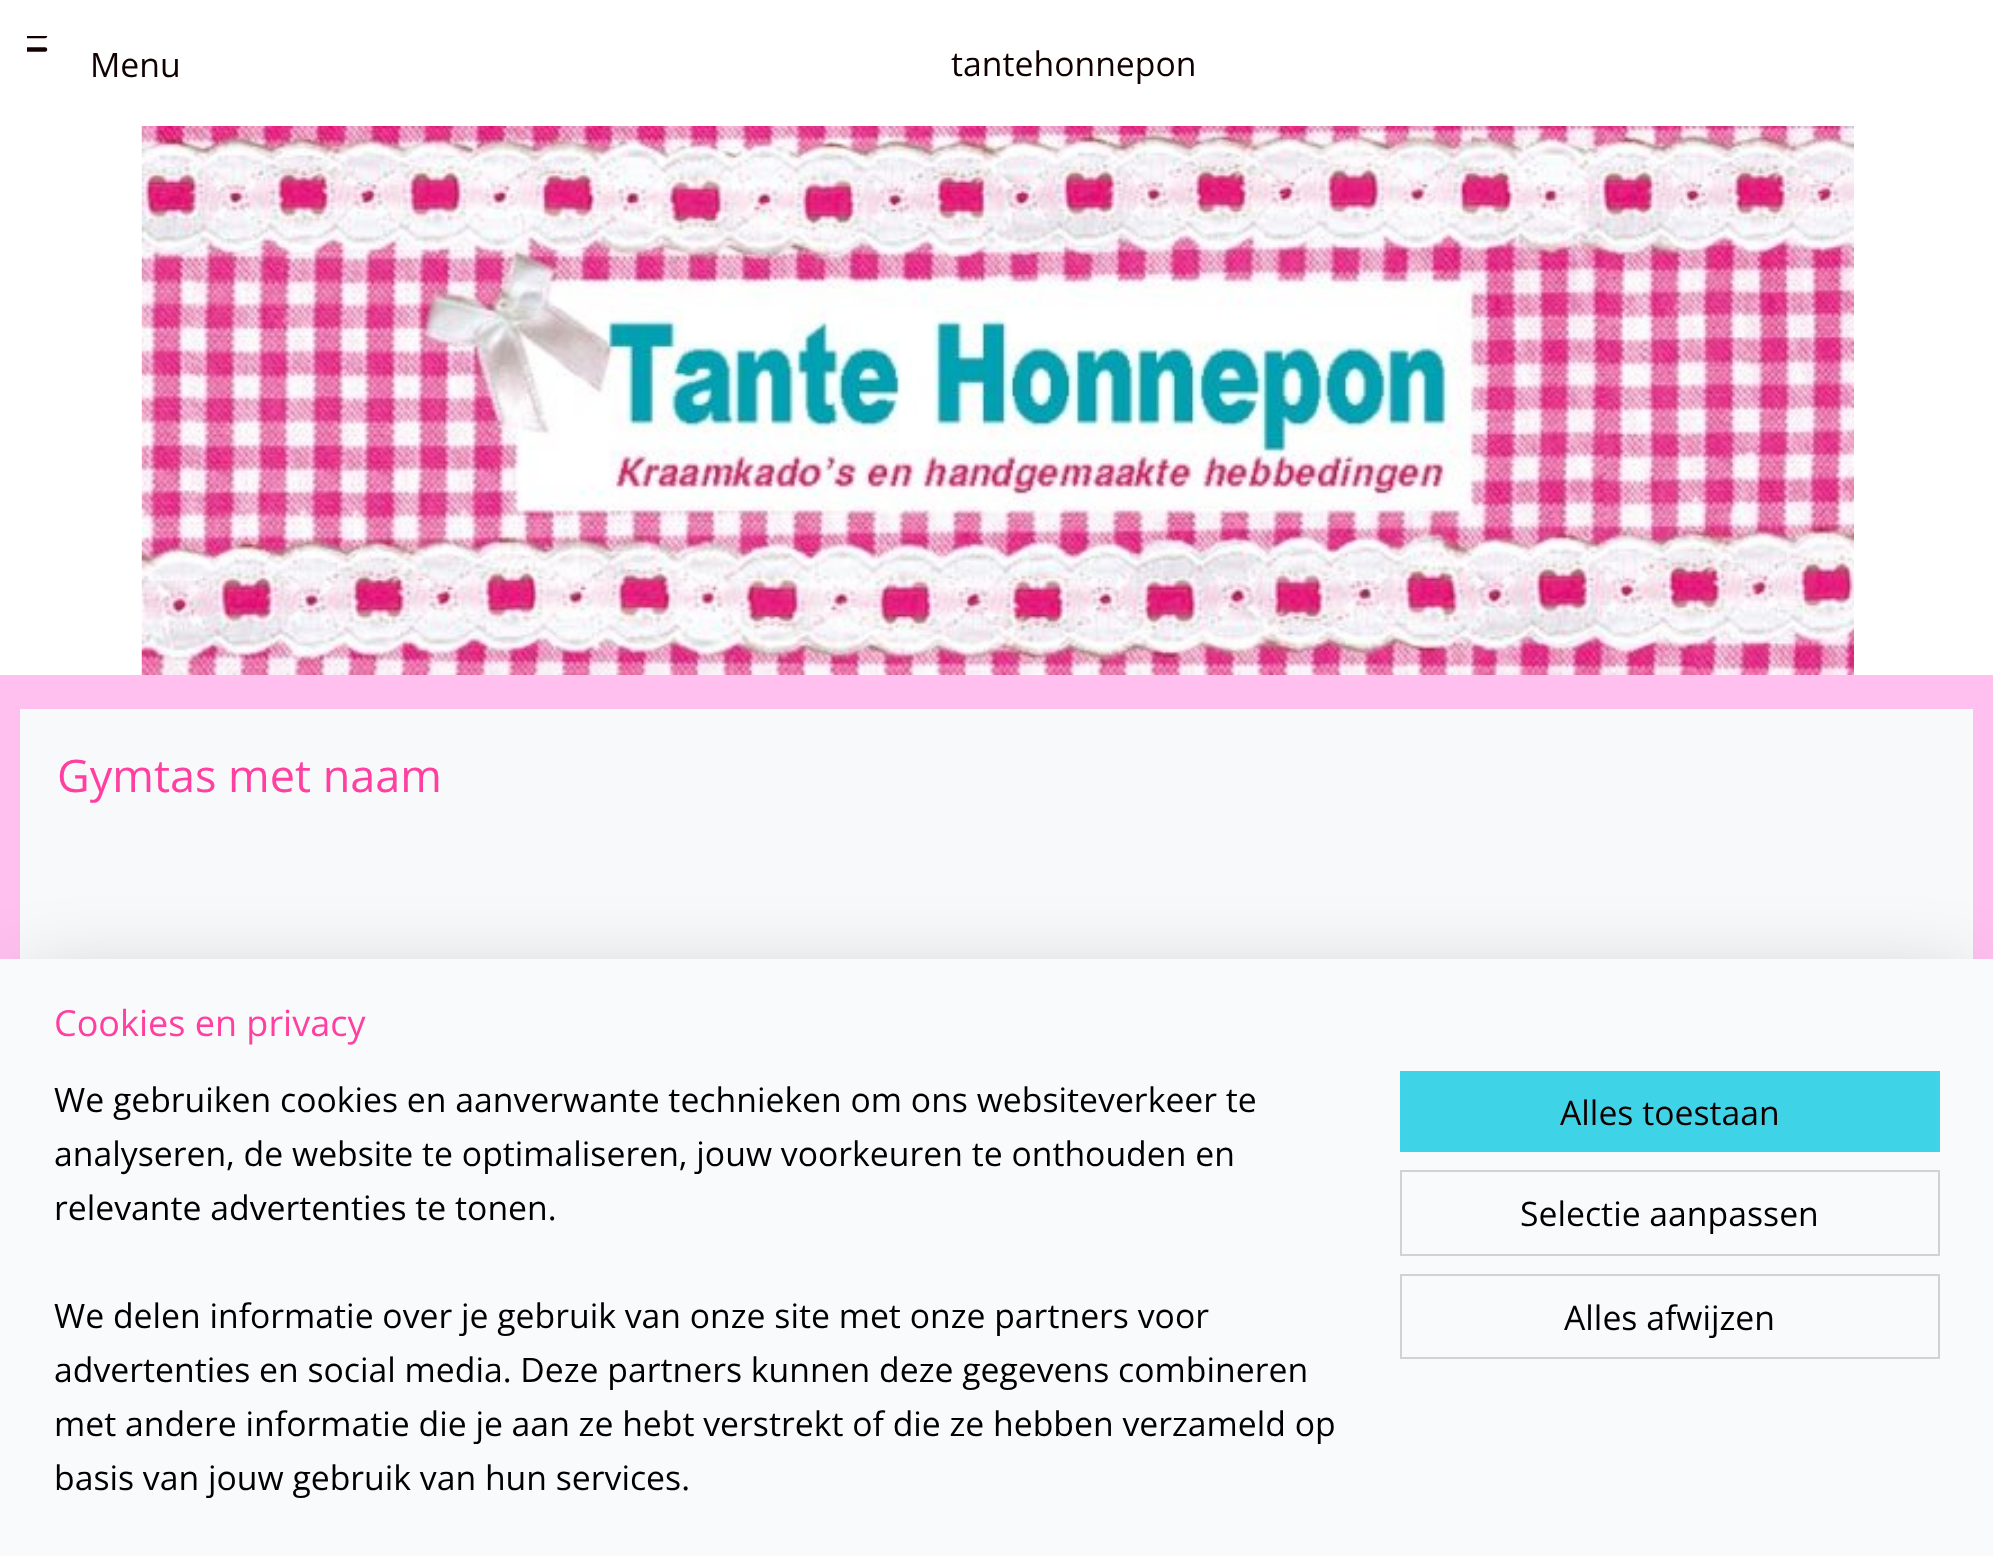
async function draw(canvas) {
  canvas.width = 1993
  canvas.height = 1556
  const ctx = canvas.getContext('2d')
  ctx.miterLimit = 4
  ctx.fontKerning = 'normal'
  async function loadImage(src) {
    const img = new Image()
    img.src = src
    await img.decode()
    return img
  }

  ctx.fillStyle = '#ffc0f0'
  ctx.fillRect(0, 0, 1993, 1556)
  ctx.fillStyle = '#fff'
  ctx.fillRect(0, 0, 1993, 675)
  ctx.drawImage(await loadImage('image0.png'), 27, 36, 21, 16)
  ctx.font = '33.75px Open Sans'
  ctx.fillStyle = '#110101'
  ctx.fillText('Menu', 90, 77)
  ctx.fillText('tantehonnepon', 951, 76)
  ctx.drawImage(await loadImage('image1.png'), 141, 126, 1713, 549)
  ctx.fillStyle = '#f8f9fb'
  ctx.fillRect(20, 709, 1953, 250)
  ctx.font = '45px Open Sans'
  ctx.fillStyle = '#ff40a0'
  ctx.fillText('Gymtas met naam', 57, 792)
  ctx.fillStyle = '#00000033'
  ctx.filter = 'blur(40.5px)'
  ctx.beginPath()
  ctx.rect(23, 981, 1948, 554)
  ctx.fill()
  ctx.filter = 'none'
  ctx.fillStyle = '#f9fafc'
  ctx.fillRect(0, 959, 1993, 597)
  ctx.font = '36px Open Sans'
  ctx.fillStyle = '#ff40a0'
  ctx.fillText('Cookies en privacy', 54, 1036)
  ctx.font = '33.75px Open Sans'
  ctx.fillStyle = '#000'
  ctx.fillText('We gebruiken cookies en aanverwante technieken om ons websiteverkeer te', 54, 1112)
  ctx.fillText('analyseren, de website te optimaliseren, jouw voorkeuren te onthouden en', 54, 1166)
  ctx.fillText('relevante advertenties te tonen.', 54, 1220)
  ctx.fillText('We delen informatie over je gebruik van onze site met onze partners voor', 54, 1328)
  ctx.fillText('advertenties en social media. Deze partners kunnen deze gegevens combineren', 54, 1382)
  ctx.fillText('met andere informatie die je aan ze hebt verstrekt of die ze hebben verzameld op', 54, 1436)
  ctx.fillText('basis van jouw gebruik van hun services.', 54, 1490)
  ctx.fillStyle = '#3fd3e8'
  ctx.fillRect(1400, 1071, 540, 81)
  ctx.fillStyle = '#110101'
  ctx.fillText('Alles toestaan', 1560, 1125)
  ctx.strokeStyle = '#d1d2d4'
  ctx.lineWidth = 2
  ctx.strokeRect(1401, 1171, 538, 84)
  ctx.fillStyle = '#000'
  ctx.fillText('Selectie aanpassen', 1520, 1226)
  ctx.strokeRect(1401, 1275, 538, 83)
  ctx.fillText('Alles afwijzen', 1564, 1330)
}

draw(document.querySelector('canvas'))
